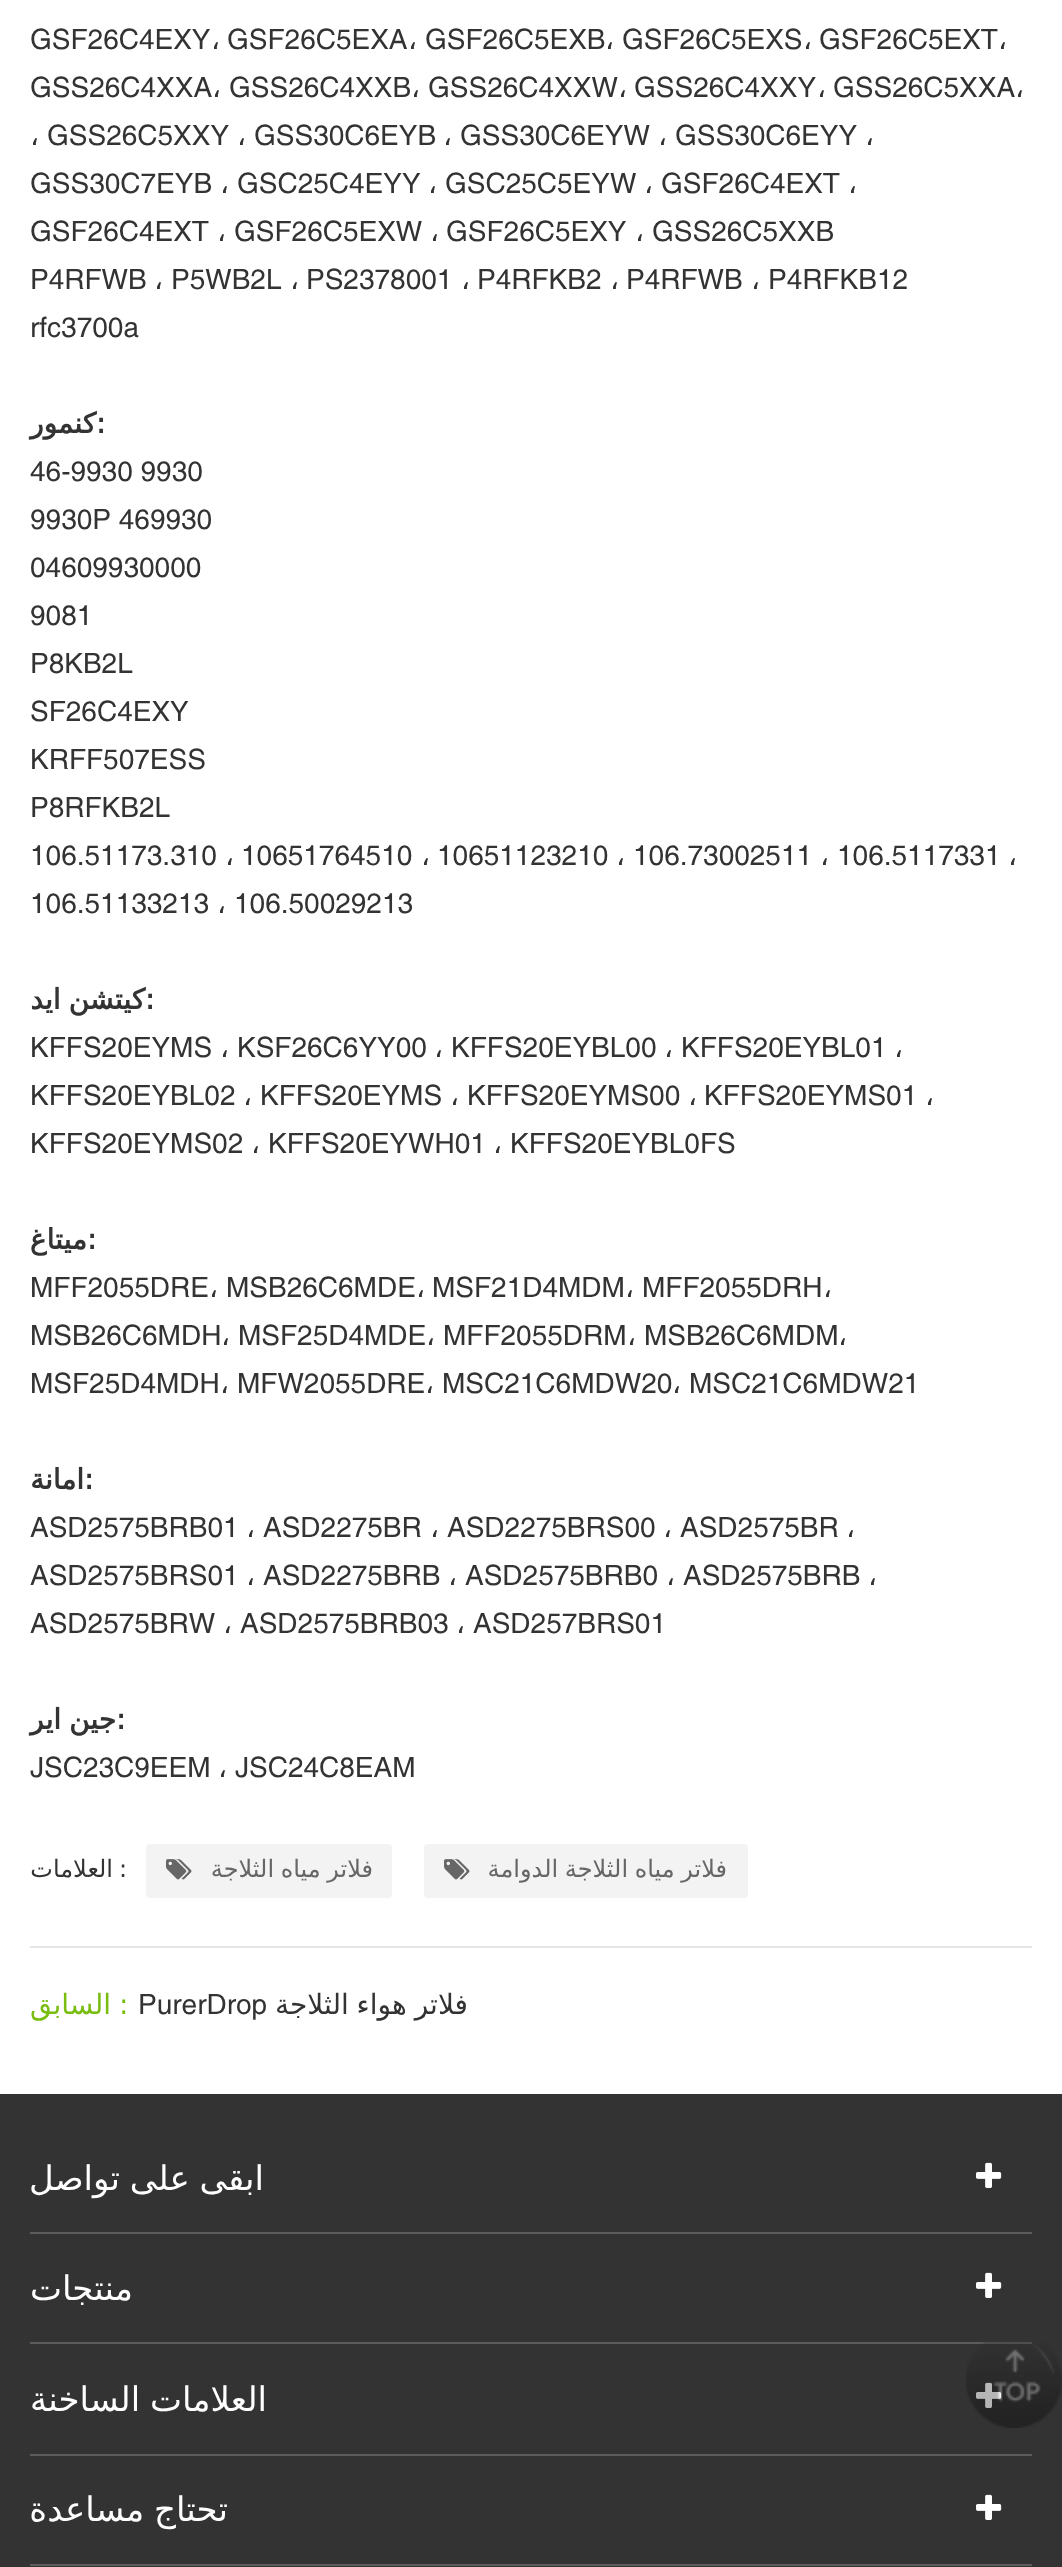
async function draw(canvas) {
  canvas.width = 1062
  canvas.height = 2567
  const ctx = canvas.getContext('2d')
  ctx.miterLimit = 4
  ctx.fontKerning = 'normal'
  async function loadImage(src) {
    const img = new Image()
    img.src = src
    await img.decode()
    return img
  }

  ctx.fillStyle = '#fff'
  ctx.fillRect(0, 0, 1062, 2567)
  ctx.font = '28px Helvetica'
  ctx.fillStyle = '#333'
  ctx.fillText('GSF26C4EXY', 30, 49)
  ctx.font = '28px DejaVu Sans'
  ctx.fillText('،', 211, 49)
  ctx.font = '28px Helvetica'
  ctx.fillText('GSF26C5EXA', 227, 49)
  ctx.font = '28px DejaVu Sans'
  ctx.fillText('،', 408, 49)
  ctx.font = '28px Helvetica'
  ctx.fillText('GSF26C5EXB', 425, 49)
  ctx.font = '28px DejaVu Sans'
  ctx.fillText('،', 605, 49)
  ctx.font = '28px Helvetica'
  ctx.fillText('GSF26C5EXS', 622, 49)
  ctx.font = '28px DejaVu Sans'
  ctx.fillText('،', 803, 49)
  ctx.font = '28px Helvetica'
  ctx.fillText('GSF26C5EXT', 819, 49)
  ctx.font = '28px DejaVu Sans'
  ctx.fillText('،', 998, 49)
  ctx.font = '28px Helvetica'
  ctx.fillText('GSS26C4XXA', 30, 97)
  ctx.font = '28px DejaVu Sans'
  ctx.fillText('،', 212, 97)
  ctx.font = '28px Helvetica'
  ctx.fillText('GSS26C4XXB', 229, 97)
  ctx.font = '28px DejaVu Sans'
  ctx.fillText('،', 411, 97)
  ctx.font = '28px Helvetica'
  ctx.fillText('GSS26C4XXW', 428, 97)
  ctx.font = '28px DejaVu Sans'
  ctx.fillText('،', 618, 97)
  ctx.font = '28px Helvetica'
  ctx.fillText('GSS26C4XXY', 634, 97)
  ctx.font = '28px DejaVu Sans'
  ctx.fillText('،', 817, 97)
  ctx.font = '28px Helvetica'
  ctx.fillText('GSS26C5XXA', 833, 97)
  ctx.font = '28px DejaVu Sans'
  ctx.fillText('،', 1015, 97)
  ctx.fillText('،', 30, 145)
  ctx.font = '28px Helvetica'
  ctx.fillText('GSS26C5XXY', 47, 145)
  ctx.font = '28px DejaVu Sans'
  ctx.fillText('،', 237, 145)
  ctx.font = '28px Helvetica'
  ctx.fillText('GSS30C6EYB', 254, 145)
  ctx.font = '28px DejaVu Sans'
  ctx.fillText('،', 443, 145)
  ctx.font = '28px Helvetica'
  ctx.fillText('GSS30C6EYW', 460, 145)
  ctx.font = '28px DejaVu Sans'
  ctx.fillText('،', 658, 145)
  ctx.font = '28px Helvetica'
  ctx.fillText('GSS30C6EYY', 675, 145)
  ctx.font = '28px DejaVu Sans'
  ctx.fillText('،', 865, 145)
  ctx.font = '28px Helvetica'
  ctx.fillText('GSS30C7EYB', 30, 193)
  ctx.font = '28px DejaVu Sans'
  ctx.fillText('،', 220, 193)
  ctx.font = '28px Helvetica'
  ctx.fillText('GSC25C4EYY', 237, 193)
  ctx.font = '28px DejaVu Sans'
  ctx.fillText('،', 428, 193)
  ctx.font = '28px Helvetica'
  ctx.fillText('GSC25C5EYW', 445, 193)
  ctx.font = '28px DejaVu Sans'
  ctx.fillText('،', 644, 193)
  ctx.font = '28px Helvetica'
  ctx.fillText('GSF26C4EXT', 661, 193)
  ctx.font = '28px DejaVu Sans'
  ctx.fillText('،', 848, 193)
  ctx.font = '28px Helvetica'
  ctx.fillText('GSF26C4EXT', 30, 241)
  ctx.font = '28px DejaVu Sans'
  ctx.fillText('،', 217, 241)
  ctx.font = '28px Helvetica'
  ctx.fillText('GSF26C5EXW', 234, 241)
  ctx.font = '28px DejaVu Sans'
  ctx.fillText('،', 430, 241)
  ctx.font = '28px Helvetica'
  ctx.fillText('GSF26C5EXY', 446, 241)
  ctx.font = '28px DejaVu Sans'
  ctx.fillText('،', 635, 241)
  ctx.font = '28px Helvetica'
  ctx.fillText('GSS26C5XXB', 652, 241)
  ctx.fillText('P4RFWB', 30, 289)
  ctx.font = '28px DejaVu Sans'
  ctx.fillText('،', 154, 289)
  ctx.font = '28px Helvetica'
  ctx.fillText('P5WB2L', 171, 289)
  ctx.font = '28px DejaVu Sans'
  ctx.fillText('،', 290, 289)
  ctx.font = '28px Helvetica'
  ctx.fillText('PS2378001', 306, 289)
  ctx.font = '28px DejaVu Sans'
  ctx.fillText('،', 461, 289)
  ctx.font = '28px Helvetica'
  ctx.fillText('P4RFKB2', 477, 289)
  ctx.font = '28px DejaVu Sans'
  ctx.fillText('،', 610, 289)
  ctx.font = '28px Helvetica'
  ctx.fillText('P4RFWB', 626, 289)
  ctx.font = '28px DejaVu Sans'
  ctx.fillText('،', 751, 289)
  ctx.font = '28px Helvetica'
  ctx.fillText('P4RFKB12', 768, 289)
  ctx.fillText('rfc3700a', 30, 337)
  ctx.direction = 'rtl'
  ctx.font = 'bold 28px DejaVu Sans'
  ctx.fillText('كنمور', 96, 433)
  ctx.direction = 'ltr'
  ctx.fillText(':', 96, 433)
  ctx.font = '28px Helvetica'
  ctx.fillText('46-9930 9930', 30, 481)
  ctx.fillText('9930P 469930', 30, 529)
  ctx.fillText('04609930000', 30, 577)
  ctx.fillText('9081', 30, 625)
  ctx.fillText('P8KB2L', 30, 673)
  ctx.fillText('SF26C4EXY', 30, 721)
  ctx.fillText('KRFF507ESS', 30, 769)
  ctx.fillText('P8RFKB2L', 30, 817)
  ctx.fillText('106.51173.310', 30, 865)
  ctx.font = '28px DejaVu Sans'
  ctx.fillText('،', 225, 865)
  ctx.font = '28px Helvetica'
  ctx.fillText('10651764510', 241, 865)
  ctx.font = '28px DejaVu Sans'
  ctx.fillText('،', 421, 865)
  ctx.font = '28px Helvetica'
  ctx.fillText('10651123210', 437, 865)
  ctx.font = '28px DejaVu Sans'
  ctx.fillText('،', 616, 865)
  ctx.font = '28px Helvetica'
  ctx.fillText('106.73002511', 633, 865)
  ctx.font = '28px DejaVu Sans'
  ctx.fillText('،', 820, 865)
  ctx.font = '28px Helvetica'
  ctx.fillText('106.5117331', 837, 865)
  ctx.font = '28px DejaVu Sans'
  ctx.fillText('،', 1008, 865)
  ctx.font = '28px Helvetica'
  ctx.fillText('106.51133213', 30, 913)
  ctx.font = '28px DejaVu Sans'
  ctx.fillText('،', 217, 913)
  ctx.font = '28px Helvetica'
  ctx.fillText('106.50029213', 234, 913)
  ctx.wordSpacing = '-1px'
  ctx.direction = 'rtl'
  ctx.font = 'bold 28px DejaVu Sans'
  ctx.fillText('كيتشن ايد', 145, 1009)
  ctx.wordSpacing = '0px'
  ctx.direction = 'ltr'
  ctx.fillText(':', 145, 1009)
  ctx.font = '28px Helvetica'
  ctx.fillText('KFFS20EYMS', 30, 1057)
  ctx.font = '28px DejaVu Sans'
  ctx.fillText('،', 220, 1057)
  ctx.font = '28px Helvetica'
  ctx.fillText('KSF26C6YY00', 237, 1057)
  ctx.font = '28px DejaVu Sans'
  ctx.fillText('،', 434, 1057)
  ctx.font = '28px Helvetica'
  ctx.fillText('KFFS20EYBL00', 451, 1057)
  ctx.font = '28px DejaVu Sans'
  ctx.fillText('،', 664, 1057)
  ctx.font = '28px Helvetica'
  ctx.fillText('KFFS20EYBL01', 681, 1057)
  ctx.font = '28px DejaVu Sans'
  ctx.fillText('،', 894, 1057)
  ctx.font = '28px Helvetica'
  ctx.fillText('KFFS20EYBL02', 30, 1105)
  ctx.font = '28px DejaVu Sans'
  ctx.fillText('،', 243, 1105)
  ctx.font = '28px Helvetica'
  ctx.fillText('KFFS20EYMS', 260, 1105)
  ctx.font = '28px DejaVu Sans'
  ctx.fillText('،', 450, 1105)
  ctx.font = '28px Helvetica'
  ctx.fillText('KFFS20EYMS00', 467, 1105)
  ctx.font = '28px DejaVu Sans'
  ctx.fillText('،', 688, 1105)
  ctx.font = '28px Helvetica'
  ctx.fillText('KFFS20EYMS01', 704, 1105)
  ctx.font = '28px DejaVu Sans'
  ctx.fillText('،', 925, 1105)
  ctx.font = '28px Helvetica'
  ctx.fillText('KFFS20EYMS02', 30, 1153)
  ctx.font = '28px DejaVu Sans'
  ctx.fillText('،', 251, 1153)
  ctx.font = '28px Helvetica'
  ctx.fillText('KFFS20EYWH01', 268, 1153)
  ctx.font = '28px DejaVu Sans'
  ctx.fillText('،', 493, 1153)
  ctx.font = '28px Helvetica'
  ctx.fillText('KFFS20EYBL0FS', 510, 1153)
  ctx.direction = 'rtl'
  ctx.font = 'bold 28px DejaVu Sans'
  ctx.fillText('ميتاغ', 87, 1249)
  ctx.direction = 'ltr'
  ctx.fillText(':', 87, 1249)
  ctx.font = '28px Helvetica'
  ctx.fillText('MFF2055DRE', 30, 1297)
  ctx.font = '28px DejaVu Sans'
  ctx.fillText('،', 209, 1297)
  ctx.font = '28px Helvetica'
  ctx.fillText('MSB26C6MDE', 226, 1297)
  ctx.font = '28px DejaVu Sans'
  ctx.fillText('،', 416, 1297)
  ctx.font = '28px Helvetica'
  ctx.fillText('MSF21D4MDM', 432, 1297)
  ctx.font = '28px DejaVu Sans'
  ctx.fillText('،', 625, 1297)
  ctx.font = '28px Helvetica'
  ctx.fillText('MFF2055DRH', 642, 1297)
  ctx.font = '28px DejaVu Sans'
  ctx.fillText('،', 823, 1297)
  ctx.font = '28px Helvetica'
  ctx.fillText('MSB26C6MDH', 30, 1345)
  ctx.font = '28px DejaVu Sans'
  ctx.fillText('،', 221, 1345)
  ctx.font = '28px Helvetica'
  ctx.fillText('MSF25D4MDE', 238, 1345)
  ctx.font = '28px DejaVu Sans'
  ctx.fillText('،', 426, 1345)
  ctx.font = '28px Helvetica'
  ctx.fillText('MFF2055DRM', 443, 1345)
  ctx.font = '28px DejaVu Sans'
  ctx.fillText('،', 627, 1345)
  ctx.font = '28px Helvetica'
  ctx.fillText('MSB26C6MDM', 644, 1345)
  ctx.font = '28px DejaVu Sans'
  ctx.fillText('،', 838, 1345)
  ctx.font = '28px Helvetica'
  ctx.fillText('MSF25D4MDH', 30, 1393)
  ctx.font = '28px DejaVu Sans'
  ctx.fillText('،', 220, 1393)
  ctx.font = '28px Helvetica'
  ctx.fillText('MFW2055DRE', 237, 1393)
  ctx.font = '28px DejaVu Sans'
  ctx.fillText('،', 425, 1393)
  ctx.font = '28px Helvetica'
  ctx.fillText('MSC21C6MDW20', 442, 1393)
  ctx.font = '28px DejaVu Sans'
  ctx.fillText('،', 672, 1393)
  ctx.font = '28px Helvetica'
  ctx.fillText('MSC21C6MDW21', 689, 1393)
  ctx.direction = 'rtl'
  ctx.font = 'bold 28px DejaVu Sans'
  ctx.fillText('امانة', 84, 1489)
  ctx.direction = 'ltr'
  ctx.fillText(':', 84, 1489)
  ctx.font = '28px Helvetica'
  ctx.fillText('ASD2575BRB01', 30, 1537)
  ctx.font = '28px DejaVu Sans'
  ctx.fillText('،', 246, 1537)
  ctx.font = '28px Helvetica'
  ctx.fillText('ASD2275BR', 263, 1537)
  ctx.font = '28px DejaVu Sans'
  ctx.fillText('،', 430, 1537)
  ctx.font = '28px Helvetica'
  ctx.fillText('ASD2275BRS00', 447, 1537)
  ctx.font = '28px DejaVu Sans'
  ctx.fillText('،', 663, 1537)
  ctx.font = '28px Helvetica'
  ctx.fillText('ASD2575BR', 680, 1537)
  ctx.font = '28px DejaVu Sans'
  ctx.fillText('،', 846, 1537)
  ctx.font = '28px Helvetica'
  ctx.fillText('ASD2575BRS01', 30, 1585)
  ctx.font = '28px DejaVu Sans'
  ctx.fillText('،', 246, 1585)
  ctx.font = '28px Helvetica'
  ctx.fillText('ASD2275BRB', 263, 1585)
  ctx.font = '28px DejaVu Sans'
  ctx.fillText('،', 448, 1585)
  ctx.font = '28px Helvetica'
  ctx.fillText('ASD2575BRB0', 465, 1585)
  ctx.font = '28px DejaVu Sans'
  ctx.fillText('،', 666, 1585)
  ctx.font = '28px Helvetica'
  ctx.fillText('ASD2575BRB', 683, 1585)
  ctx.font = '28px DejaVu Sans'
  ctx.fillText('،', 868, 1585)
  ctx.font = '28px Helvetica'
  ctx.fillText('ASD2575BRW', 30, 1633)
  ctx.font = '28px DejaVu Sans'
  ctx.fillText('،', 223, 1633)
  ctx.font = '28px Helvetica'
  ctx.fillText('ASD2575BRB03', 240, 1633)
  ctx.font = '28px DejaVu Sans'
  ctx.fillText('،', 456, 1633)
  ctx.font = '28px Helvetica'
  ctx.fillText('ASD257BRS01', 473, 1633)
  ctx.wordSpacing = '-1px'
  ctx.direction = 'rtl'
  ctx.font = 'bold 28px DejaVu Sans'
  ctx.fillText('جين اير', 116, 1729)
  ctx.wordSpacing = '0px'
  ctx.direction = 'ltr'
  ctx.fillText(':', 116, 1729)
  ctx.font = '28px Helvetica'
  ctx.fillText('JSC23C9EEM', 30, 1777)
  ctx.font = '28px DejaVu Sans'
  ctx.fillText('،', 218, 1777)
  ctx.font = '28px Helvetica'
  ctx.fillText('JSC24C8EAM', 235, 1777)
  ctx.direction = 'rtl'
  ctx.font = '24px DejaVu Sans'
  ctx.fillText('العلامات', 113, 1877)
  ctx.direction = 'ltr'
  ctx.fillText(':', 119, 1877)
  ctx.fillStyle = '#f3f3f3'
  ctx.beginPath()
  ctx.roundRect(146, 1844, 246, 54, 4)
  ctx.fill()
  ctx.drawImage(await loadImage('image0.png'), 166, 1859, 26, 21)
  ctx.wordSpacing = '-1px'
  ctx.direction = 'rtl'
  ctx.fillStyle = '#666'
  ctx.fillText('فلاتر مياه الثلاجة', 373, 1877)
  ctx.fillStyle = '#f3f3f3'
  ctx.beginPath()
  ctx.roundRect(424, 1844, 324, 54, 4)
  ctx.fill()
  ctx.drawImage(await loadImage('image0.png'), 444, 1859, 26, 21)
  ctx.fillStyle = '#666'
  ctx.fillText('فلاتر مياه الثلاجة الدوامة', 727, 1877)
  ctx.fillStyle = '#e5e5e5'
  ctx.fillRect(30, 1946, 1002, 2)
  ctx.wordSpacing = '0px'
  ctx.font = '28px DejaVu Sans'
  ctx.fillStyle = '#79bd10'
  ctx.fillText('السابق', 111, 2014)
  ctx.direction = 'ltr'
  ctx.fillText(':', 119, 2014)
  ctx.font = '28px Helvetica'
  ctx.fillStyle = '#333'
  ctx.fillText('PurerDrop', 138, 2014)
  ctx.wordSpacing = '-1px'
  ctx.direction = 'rtl'
  ctx.font = '28px DejaVu Sans'
  ctx.fillText('فلاتر هواء الثلاجة', 468, 2014)
  ctx.fillRect(0, 2094, 1062, 473)
  ctx.fillStyle = '#5c5c5c'
  ctx.fillRect(30, 2232, 1002, 2)
  ctx.font = '34px DejaVu Sans'
  ctx.fillStyle = '#fff'
  ctx.fillText('ابقى على تواصل', 264, 2190)
  ctx.drawImage(await loadImage('image1.png'), 976, 2162, 26, 26)
  ctx.fillStyle = '#5c5c5c'
  ctx.fillRect(30, 2342, 1002, 2)
  ctx.wordSpacing = '0px'
  ctx.fillStyle = '#fff'
  ctx.fillText('منتجات', 133, 2300)
  ctx.drawImage(await loadImage('image1.png'), 976, 2272, 26, 26)
  ctx.fillStyle = '#5c5c5c'
  ctx.fillRect(30, 2454, 1002, 2)
  ctx.wordSpacing = '-1px'
  ctx.fillStyle = '#fff'
  ctx.fillText('العلامات الساخنة', 267, 2411)
  ctx.drawImage(await loadImage('image1.png'), 976, 2382, 26, 26)
  ctx.drawImage(await loadImage('image2.png'), 966, 2342, 96, 86)
  ctx.fillStyle = '#5c5c5c'
  ctx.fillRect(30, 2564, 1002, 2)
  ctx.fillStyle = '#fff'
  ctx.fillText('تحتاج مساعدة', 228, 2521)
  ctx.drawImage(await loadImage('image1.png'), 976, 2494, 26, 26)
}

draw(document.querySelector('canvas'))
